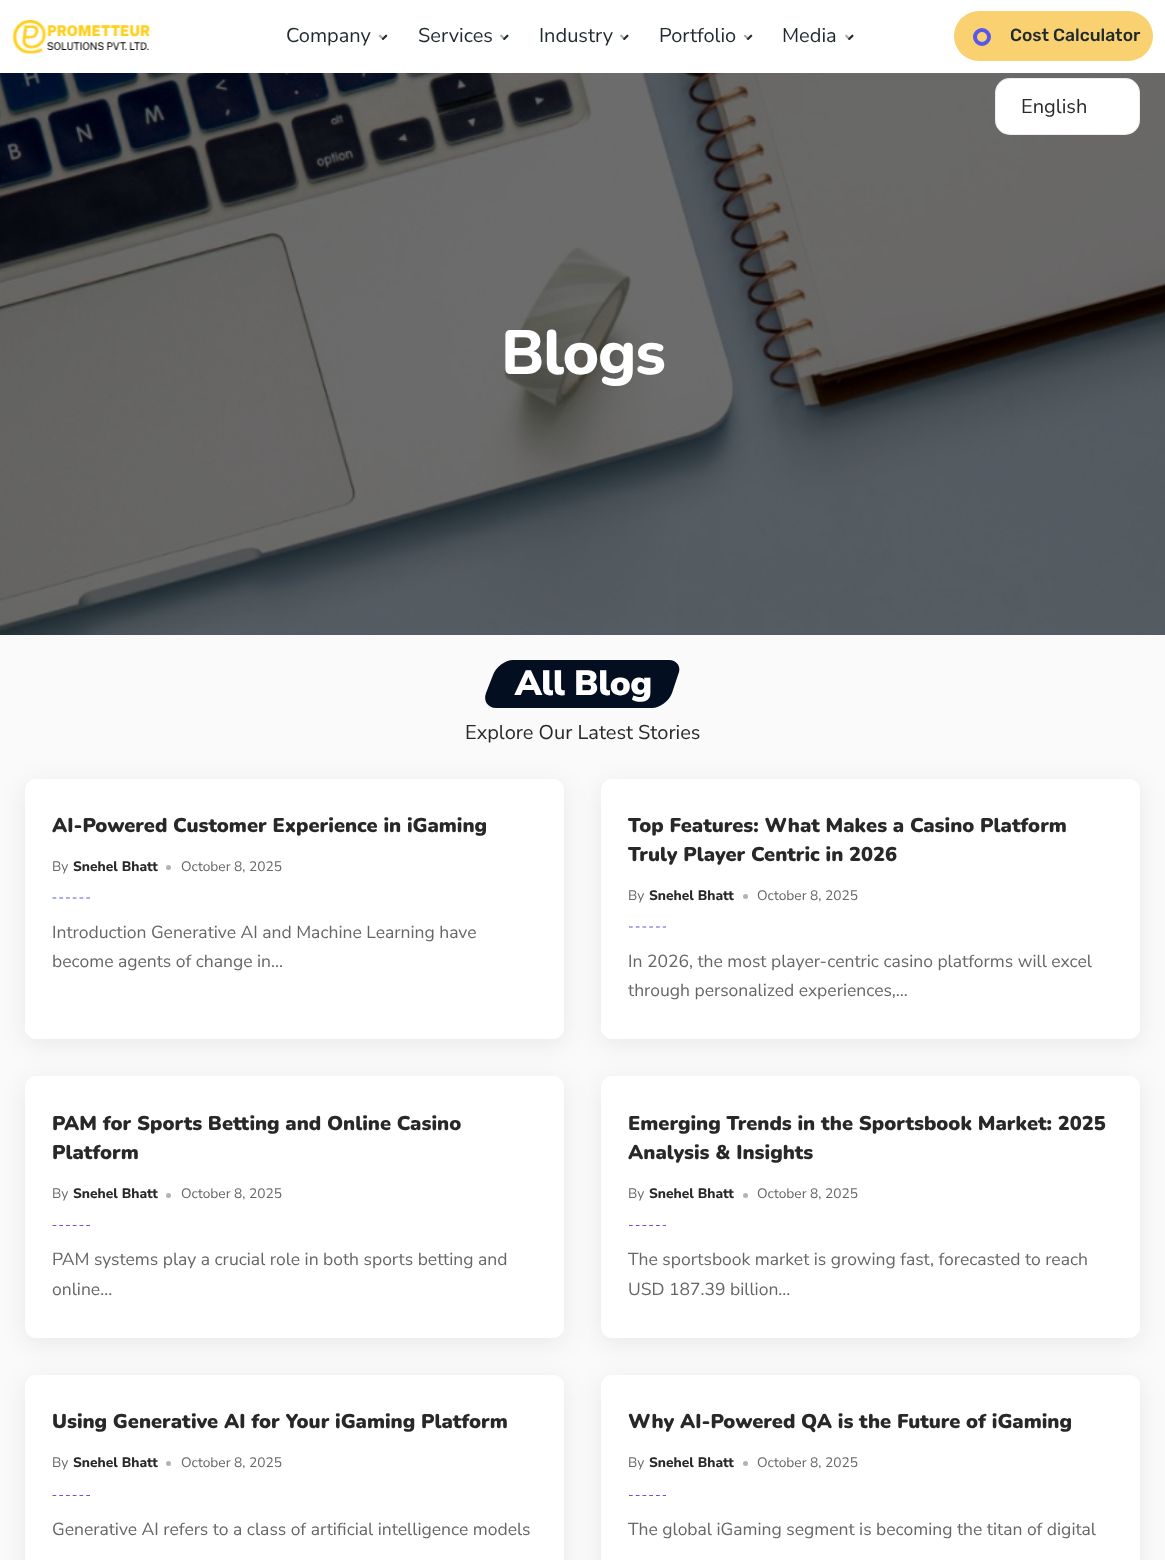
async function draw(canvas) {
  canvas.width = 1165
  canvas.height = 1560
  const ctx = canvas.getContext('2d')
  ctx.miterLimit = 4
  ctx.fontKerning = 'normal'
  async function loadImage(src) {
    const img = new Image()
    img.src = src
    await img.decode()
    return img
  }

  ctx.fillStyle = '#fafafa'
  ctx.fillRect(0, 0, 1165, 1560)
  ctx.fillStyle = '#fff'
  ctx.fillRect(0, 0, 1165, 73)
  ctx.drawImage(await loadImage('image0.png'), 12, 20, 138, 34)
  ctx.font = '20px Nunito Sans'
  ctx.fillStyle = '#1e2a2e'
  ctx.fillText('Company', 286, 42)
  ctx.drawImage(await loadImage('image2.png'), 381, 34, 7, 6)
  ctx.drawImage(await loadImage('image1.png'), 378, 34, 5, 5)
  ctx.fillText('Services', 418, 42)
  ctx.drawImage(await loadImage('image4.png'), 502, 34, 7, 7)
  ctx.drawImage(await loadImage('image3.png'), 500, 34, 4, 5)
  ctx.fillText('Industry', 539, 42)
  ctx.drawImage(await loadImage('image4.png'), 622, 34, 7, 7)
  ctx.drawImage(await loadImage('image3.png'), 620, 34, 4, 5)
  ctx.fillText('Portfolio', 659, 42)
  ctx.drawImage(await loadImage('image2.png'), 746, 34, 7, 6)
  ctx.drawImage(await loadImage('image1.png'), 743, 34, 5, 5)
  ctx.fillText('Media', 782, 42)
  ctx.drawImage(await loadImage('image4.png'), 847, 34, 7, 7)
  ctx.drawImage(await loadImage('image3.png'), 845, 34, 4, 5)
  ctx.fillStyle = '#fad171'
  ctx.beginPath()
  ctx.roundRect(954, 11, 199, 50, 25)
  ctx.fill()
  ctx.beginPath()
  ctx.arc(982, 37, 7, 0, 2 * Math.PI)
  ctx.strokeStyle = '#5956e9'
  ctx.lineWidth = 4
  ctx.stroke()
  ctx.font = '500 17.5px Rubik'
  ctx.fillStyle = '#1e2a2e'
  ctx.fillText('Cost Calculator', 1010, 41)
  ctx.drawImage(await loadImage('image5.png'), 0, 73, 1165, 562)
  ctx.fillStyle = '#fff'
  ctx.beginPath()
  ctx.roundRect(995, 78, 145, 57, 15)
  ctx.fill()
  ctx.beginPath()
  ctx.roundRect(995.5, 78.5, 144, 56, 14.5)
  ctx.strokeStyle = '#88888826'
  ctx.lineWidth = 1
  ctx.stroke()
  ctx.font = '20px Nunito Sans'
  ctx.fillStyle = '#282828'
  ctx.fillText('English', 1021, 113)
  ctx.letterSpacing = '-1.25px'
  ctx.font = '800 62.5px Nunito'
  ctx.fillStyle = '#fff'
  ctx.fillText('Blogs', 501, 374)
  ctx.fillStyle = '#030e21'
  ctx.beginPath()
  ctx.moveTo(513, 660)
  ctx.lineTo(669, 660)
  ctx.bezierCurveTo(677, 660, 682, 667, 678, 675)
  ctx.lineTo(672, 693)
  ctx.bezierCurveTo(669, 701, 660, 708, 652, 708)
  ctx.lineTo(496, 708)
  ctx.bezierCurveTo(488, 708, 483, 701, 486, 693)
  ctx.lineTo(493, 675)
  ctx.bezierCurveTo(496, 667, 505, 660, 513, 660)
  ctx.closePath()
  ctx.fill()
  ctx.letterSpacing = '-0.5px'
  ctx.font = '900 35px Nunito Sans'
  ctx.fillStyle = '#fff'
  ctx.fillText('All Blog', 515, 695)
  ctx.letterSpacing = '0px'
  ctx.font = '20px Nunito Sans'
  ctx.fillStyle = '#282828'
  ctx.fillText('Explore Our Latest Stories', 465, 739)
  ctx.fillStyle = '#00000012'
  ctx.filter = 'blur(12.5px)'
  ctx.beginPath()
  ctx.roundRect(25, 784, 539, 260, 11)
  ctx.fill()
  ctx.filter = 'none'
  ctx.fillStyle = '#fff'
  ctx.beginPath()
  ctx.roundRect(25, 779, 539, 260, 11)
  ctx.fill()
  ctx.font = '900 20px Nunito'
  ctx.fillStyle = '#282828'
  ctx.fillText('AI-Powered Customer Experience in iGaming', 52, 832)
  ctx.font = '13.75px Nunito Sans'
  ctx.fillStyle = '#666'
  ctx.fillText('By', 52, 871)
  ctx.font = '800 13.75px Nunito Sans'
  ctx.fillStyle = '#282828'
  ctx.fillText('Snehel Bhatt', 73, 871)
  ctx.fillStyle = '#b3b3b3'
  ctx.beginPath()
  ctx.arc(168.5, 867.5, 2.5, 0, 2 * Math.PI)
  ctx.fill()
  ctx.font = '13.75px Nunito Sans'
  ctx.fillStyle = '#666'
  ctx.fillText('October 8, 2025', 181, 871)
  ctx.beginPath()
  ctx.moveTo(52.5, 898)
  ctx.lineTo(90, 898)
  ctx.strokeStyle = '#5956e9'
  ctx.lineWidth = 1.2
  ctx.setLineDash([3.75, 3])
  ctx.stroke()
  ctx.font = '17.5px Nunito Sans'
  ctx.fillText('Introduction Generative AI and Machine Learning have', 52, 938)
  ctx.fillText('become agents of change in…', 52, 967)
  ctx.fillStyle = '#00000012'
  ctx.filter = 'blur(12.5px)'
  ctx.beginPath()
  ctx.roundRect(601, 784, 539, 260, 11)
  ctx.fill()
  ctx.filter = 'none'
  ctx.fillStyle = '#fff'
  ctx.beginPath()
  ctx.roundRect(601, 779, 539, 260, 11)
  ctx.fill()
  ctx.font = '900 20px Nunito'
  ctx.fillStyle = '#282828'
  ctx.fillText('Top Features: What Makes a Casino Platform', 628, 832)
  ctx.fillText('Truly Player Centric in 2026', 628, 861)
  ctx.font = '13.75px Nunito Sans'
  ctx.fillStyle = '#666'
  ctx.fillText('By', 628, 900)
  ctx.font = '800 13.75px Nunito Sans'
  ctx.fillStyle = '#282828'
  ctx.fillText('Snehel Bhatt', 649, 900)
  ctx.fillStyle = '#b3b3b3'
  ctx.beginPath()
  ctx.arc(745.5, 896.5, 2.5, 0, 2 * Math.PI)
  ctx.fill()
  ctx.font = '13.75px Nunito Sans'
  ctx.fillStyle = '#666'
  ctx.fillText('October 8, 2025', 757, 900)
  ctx.beginPath()
  ctx.moveTo(629, 927)
  ctx.lineTo(666, 927)
  ctx.stroke()
  ctx.font = '17.5px Nunito Sans'
  ctx.fillText('In 2026, the most player-centric casino platforms will excel', 628, 967)
  ctx.fillText('through personalized experiences,…', 628, 996)
  ctx.fillStyle = '#00000012'
  ctx.filter = 'blur(12.5px)'
  ctx.beginPath()
  ctx.roundRect(25, 1081, 539, 262, 11)
  ctx.fill()
  ctx.filter = 'none'
  ctx.fillStyle = '#fff'
  ctx.beginPath()
  ctx.roundRect(25, 1076, 539, 262, 11)
  ctx.fill()
  ctx.font = '900 20px Nunito'
  ctx.fillStyle = '#282828'
  ctx.fillText('PAM for Sports Betting and Online Casino', 52, 1130)
  ctx.fillText('Platform', 52, 1159)
  ctx.font = '13.75px Nunito Sans'
  ctx.fillStyle = '#666'
  ctx.fillText('By', 52, 1198)
  ctx.font = '800 13.75px Nunito Sans'
  ctx.fillStyle = '#282828'
  ctx.fillText('Snehel Bhatt', 73, 1198)
  ctx.fillStyle = '#b3b3b3'
  ctx.beginPath()
  ctx.arc(168.5, 1195.5, 2.5, 0, 2 * Math.PI)
  ctx.fill()
  ctx.font = '13.75px Nunito Sans'
  ctx.fillStyle = '#666'
  ctx.fillText('October 8, 2025', 181, 1198)
  ctx.beginPath()
  ctx.moveTo(52.5, 1225.5)
  ctx.lineTo(90, 1225.5)
  ctx.stroke()
  ctx.font = '17.5px Nunito Sans'
  ctx.fillText('PAM systems play a crucial role in both sports betting and', 52, 1265)
  ctx.fillText('online…', 52, 1295)
  ctx.fillStyle = '#00000012'
  ctx.filter = 'blur(12.5px)'
  ctx.beginPath()
  ctx.roundRect(601, 1081, 539, 262, 11)
  ctx.fill()
  ctx.filter = 'none'
  ctx.fillStyle = '#fff'
  ctx.beginPath()
  ctx.roundRect(601, 1076, 539, 262, 11)
  ctx.fill()
  ctx.font = '900 20px Nunito'
  ctx.fillStyle = '#282828'
  ctx.fillText('Emerging Trends in the Sportsbook Market: 2025', 628, 1130)
  ctx.fillText('Analysis & Insights', 628, 1159)
  ctx.font = '13.75px Nunito Sans'
  ctx.fillStyle = '#666'
  ctx.fillText('By', 628, 1198)
  ctx.font = '800 13.75px Nunito Sans'
  ctx.fillStyle = '#282828'
  ctx.fillText('Snehel Bhatt', 649, 1198)
  ctx.fillStyle = '#b3b3b3'
  ctx.beginPath()
  ctx.arc(745.5, 1195.5, 2.5, 0, 2 * Math.PI)
  ctx.fill()
  ctx.font = '13.75px Nunito Sans'
  ctx.fillStyle = '#666'
  ctx.fillText('October 8, 2025', 757, 1198)
  ctx.beginPath()
  ctx.moveTo(629, 1225.5)
  ctx.lineTo(666, 1225.5)
  ctx.stroke()
  ctx.font = '17.5px Nunito Sans'
  ctx.fillText('The sportsbook market is growing fast, forecasted to reach', 628, 1265)
  ctx.fillText('USD 187.39 billion…', 628, 1295)
  ctx.fillStyle = '#00000012'
  ctx.filter = 'blur(12.5px)'
  ctx.beginPath()
  ctx.roundRect(25, 1380, 539, 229, 11)
  ctx.fill()
  ctx.filter = 'none'
  ctx.fillStyle = '#fff'
  ctx.beginPath()
  ctx.roundRect(25, 1375, 539, 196, 11)
  ctx.fill()
  ctx.font = '900 20px Nunito'
  ctx.fillStyle = '#282828'
  ctx.fillText('Using Generative AI for Your iGaming Platform', 52, 1428)
  ctx.font = '13.75px Nunito Sans'
  ctx.fillStyle = '#666'
  ctx.fillText('By', 52, 1467)
  ctx.font = '800 13.75px Nunito Sans'
  ctx.fillStyle = '#282828'
  ctx.fillText('Snehel Bhatt', 73, 1467)
  ctx.fillStyle = '#b3b3b3'
  ctx.beginPath()
  ctx.arc(168.5, 1463.5, 2.5, 0, 2 * Math.PI)
  ctx.fill()
  ctx.font = '13.75px Nunito Sans'
  ctx.fillStyle = '#666'
  ctx.fillText('October 8, 2025', 181, 1467)
  ctx.beginPath()
  ctx.moveTo(52.5, 1495.5)
  ctx.lineTo(90, 1495.5)
  ctx.stroke()
  ctx.font = '17.5px Nunito Sans'
  ctx.fillText('Generative AI refers to a class of artificial intelligence models', 52, 1535)
  ctx.fillStyle = '#00000012'
  ctx.filter = 'blur(12.5px)'
  ctx.beginPath()
  ctx.roundRect(601, 1380, 539, 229, 11)
  ctx.fill()
  ctx.filter = 'none'
  ctx.fillStyle = '#fff'
  ctx.beginPath()
  ctx.roundRect(601, 1375, 539, 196, 11)
  ctx.fill()
  ctx.font = '900 20px Nunito'
  ctx.fillStyle = '#282828'
  ctx.fillText('Why AI-Powered QA is the Future of iGaming', 628, 1428)
  ctx.font = '13.75px Nunito Sans'
  ctx.fillStyle = '#666'
  ctx.fillText('By', 628, 1467)
  ctx.font = '800 13.75px Nunito Sans'
  ctx.fillStyle = '#282828'
  ctx.fillText('Snehel Bhatt', 649, 1467)
  ctx.fillStyle = '#b3b3b3'
  ctx.beginPath()
  ctx.arc(745.5, 1463.5, 2.5, 0, 2 * Math.PI)
  ctx.fill()
  ctx.font = '13.75px Nunito Sans'
  ctx.fillStyle = '#666'
  ctx.fillText('October 8, 2025', 757, 1467)
  ctx.beginPath()
  ctx.moveTo(629, 1495.5)
  ctx.lineTo(666, 1495.5)
  ctx.stroke()
  ctx.font = '17.5px Nunito Sans'
  ctx.fillText('The global iGaming segment is becoming the titan of digital', 628, 1535)
}

draw(document.querySelector('canvas'))
